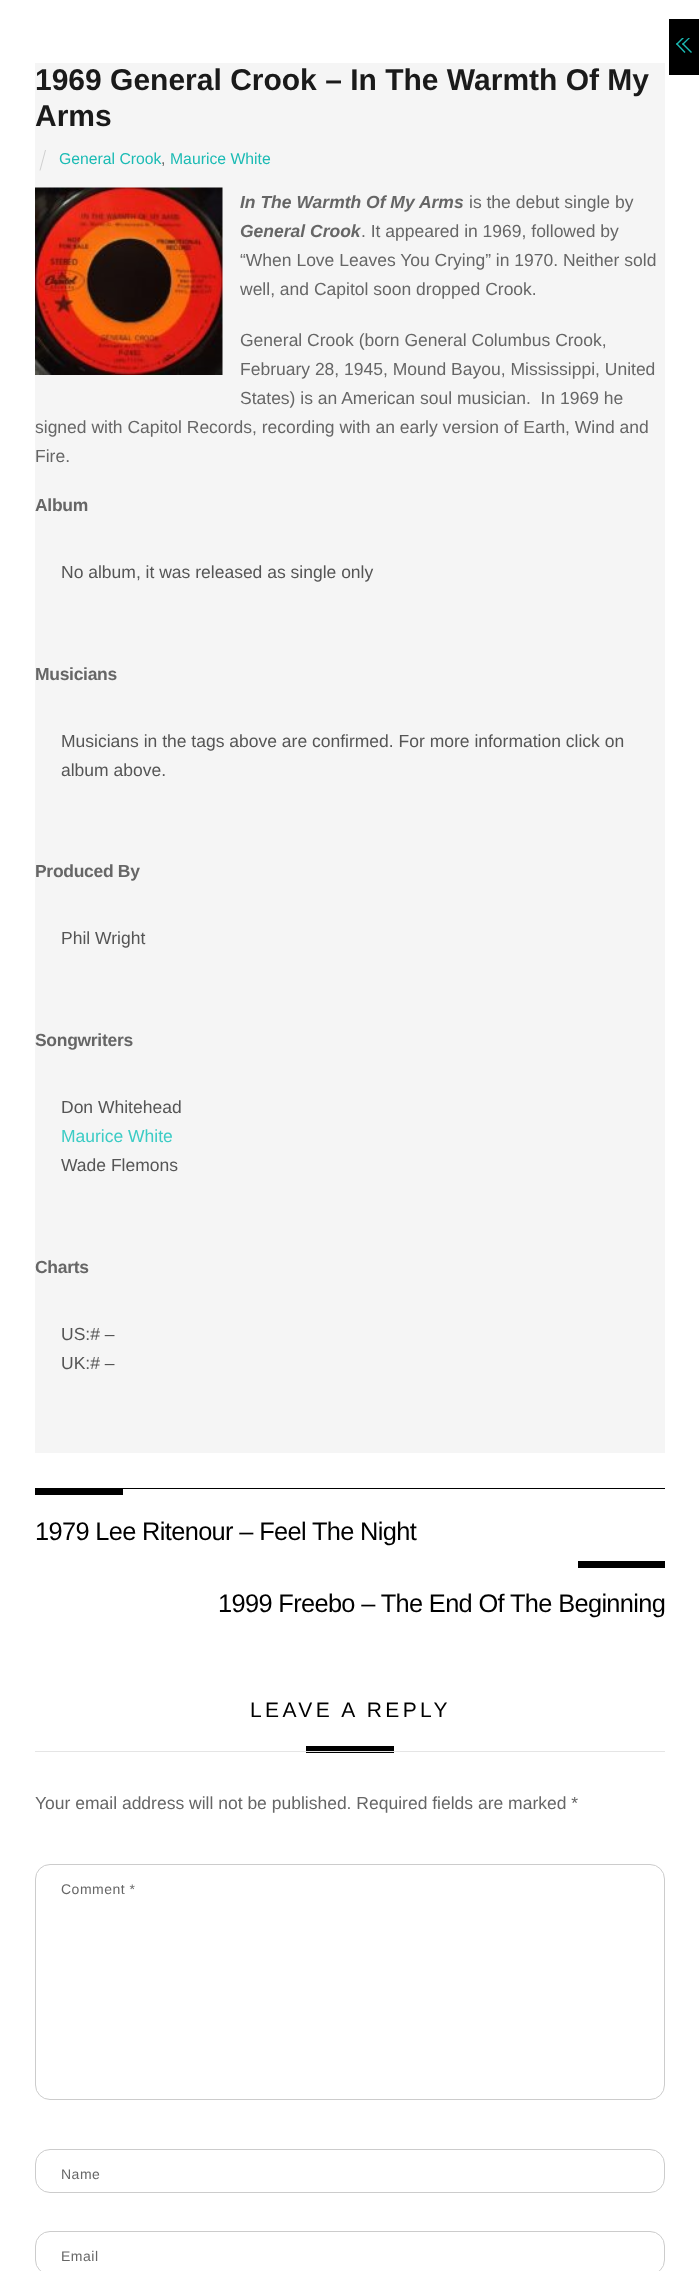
async function draw(canvas) {
  canvas.width = 699
  canvas.height = 2271
  const ctx = canvas.getContext('2d')
  ctx.miterLimit = 4
  ctx.fontKerning = 'normal'
  async function loadImage(src) {
    const img = new Image()
    img.src = src
    await img.decode()
    return img
  }

  ctx.fillStyle = '#fff'
  ctx.fillRect(0, 0, 699, 2271)
  ctx.fillStyle = '#000'
  ctx.fillRect(669, 19, 30, 56)
  ctx.save()
  ctx.beginPath()
  ctx.rect(671, 38, 28, 22)
  ctx.clip()
  ctx.fillStyle = '#1bbbb4'
  ctx.beginPath()
  ctx.moveTo(676, 44)
  ctx.lineTo(686.5, 33.5)
  ctx.lineTo(687.5, 34.5)
  ctx.lineTo(677, 45)
  ctx.closePath()
  ctx.fill()
  ctx.restore()
  ctx.fillStyle = '#1bbbb4'
  ctx.beginPath()
  ctx.moveTo(676, 44)
  ctx.lineTo(677, 43)
  ctx.lineTo(685.5, 52)
  ctx.lineTo(684.5, 53)
  ctx.closePath()
  ctx.fill()
  ctx.save()
  ctx.beginPath()
  ctx.rect(671, 38, 28, 22)
  ctx.clip()
  ctx.beginPath()
  ctx.moveTo(682, 44)
  ctx.lineTo(693, 33.5)
  ctx.lineTo(693.5, 34.5)
  ctx.lineTo(683, 45)
  ctx.closePath()
  ctx.fill()
  ctx.restore()
  ctx.beginPath()
  ctx.moveTo(682, 44)
  ctx.lineTo(683, 43)
  ctx.lineTo(692, 52)
  ctx.lineTo(691, 53)
  ctx.closePath()
  ctx.fill()
  ctx.fillStyle = '#f5f5f5'
  ctx.fillRect(35, 63, 630, 1390)
  ctx.font = 'bold 30px Liberation Sans'
  ctx.fillStyle = '#1a1a1a'
  ctx.fillText('1969 General Crook – In The Warmth Of My', 35, 90)
  ctx.fillText('Arms', 35, 126)
  ctx.fillStyle = '#cfcfcf'
  ctx.beginPath()
  ctx.moveTo(45, 150)
  ctx.lineTo(46, 150)
  ctx.lineTo(40.5, 170.5)
  ctx.lineTo(39.5, 170.5)
  ctx.closePath()
  ctx.fill()
  ctx.font = '15.75px Liberation Sans'
  ctx.fillStyle = '#1bbbb4'
  ctx.fillText('General Crook', 59, 164)
  ctx.fillStyle = '#666'
  ctx.fillText(',', 161, 164)
  ctx.fillStyle = '#1bbbb4'
  ctx.fillText('Maurice White', 170, 164)
  ctx.drawImage(await loadImage('image0.png'), 35, 187, 188, 188)
  ctx.font = 'italic bold 17.5px Liberation Sans'
  ctx.fillStyle = '#666'
  ctx.fillText('In The Warmth Of My Arms', 240, 208)
  ctx.font = '17.5px Liberation Sans'
  ctx.fillText('is the debut single by', 469, 208)
  ctx.font = 'italic bold 17.5px Liberation Sans'
  ctx.fillText('General Crook', 240, 237)
  ctx.font = '17.5px Liberation Sans'
  ctx.fillText('. It appeared in 1969, followed by', 361, 237)
  ctx.fillText('“When Love Leaves You Crying” in 1970. Neither sold', 240, 266)
  ctx.fillText('well, and Capitol soon dropped Crook.', 240, 295)
  ctx.fillText('General Crook (born General Columbus Crook,', 240, 346)
  ctx.fillText('February 28, 1945, Mound Bayou, Mississippi, United', 240, 375)
  ctx.fillText('States) is an American soul musician.  In 1969 he', 240, 404)
  ctx.fillText('signed with Capitol Records, recording with an early version of Earth, Wind and', 35, 433)
  ctx.fillText('Fire.', 35, 462)
  ctx.letterSpacing = '-0.3px'
  ctx.font = 'bold 17.5px Liberation Sans'
  ctx.fillText('Album', 35, 511)
  ctx.letterSpacing = '0px'
  ctx.font = '17.5px Liberation Sans'
  ctx.fillStyle = '#555'
  ctx.fillText('No album, it was released as single only', 61, 578)
  ctx.letterSpacing = '-0.3px'
  ctx.font = 'bold 17.5px Liberation Sans'
  ctx.fillStyle = '#666'
  ctx.fillText('Musicians', 35, 680)
  ctx.letterSpacing = '0px'
  ctx.font = '17.5px Liberation Sans'
  ctx.fillStyle = '#555'
  ctx.fillText('Musicians in the tags above are confirmed. For more information click on', 61, 747)
  ctx.fillText('album above.', 61, 776)
  ctx.letterSpacing = '-0.3px'
  ctx.font = 'bold 17.5px Liberation Sans'
  ctx.fillStyle = '#666'
  ctx.fillText('Produced By', 35, 877)
  ctx.letterSpacing = '0px'
  ctx.font = '17.5px Liberation Sans'
  ctx.fillStyle = '#555'
  ctx.fillText('Phil Wright', 61, 944)
  ctx.letterSpacing = '-0.3px'
  ctx.font = 'bold 17.5px Liberation Sans'
  ctx.fillStyle = '#666'
  ctx.fillText('Songwriters', 35, 1046)
  ctx.letterSpacing = '0px'
  ctx.font = '17.5px Liberation Sans'
  ctx.fillStyle = '#555'
  ctx.fillText('Don Whitehead', 61, 1113)
  ctx.fillStyle = '#3cccc5'
  ctx.fillText('Maurice White', 61, 1142)
  ctx.fillStyle = '#555'
  ctx.fillText('Wade Flemons', 61, 1171)
  ctx.letterSpacing = '-0.3px'
  ctx.font = 'bold 17.5px Liberation Sans'
  ctx.fillStyle = '#666'
  ctx.fillText('Charts', 35, 1273)
  ctx.letterSpacing = '0px'
  ctx.font = '17.5px Liberation Sans'
  ctx.fillStyle = '#555'
  ctx.fillText('US:# –', 61, 1340)
  ctx.fillText('UK:# –', 61, 1369)
  ctx.fillStyle = '#000'
  ctx.fillRect(35, 1488, 630, 1)
  ctx.fillRect(35, 1489, 88, 6)
  ctx.letterSpacing = '-0.65px'
  ctx.font = '25.4px Liberation Sans'
  ctx.fillText('1979 Lee Ritenour – Feel The Night', 35, 1540)
  ctx.fillRect(578, 1561, 87, 7)
  ctx.fillText('1999 Freebo – The End Of The Beginning', 218, 1612)
  ctx.letterSpacing = '3.4px'
  ctx.font = '21px Liberation Sans'
  ctx.fillText('LEAVE A REPLY', 250, 1717)
  ctx.fillRect(306, 1746, 88, 7)
  ctx.fillStyle = '#e5e5e5'
  ctx.fillRect(35, 1751, 630, 1)
  ctx.letterSpacing = '0px'
  ctx.font = '17.5px Liberation Sans'
  ctx.fillStyle = '#666'
  ctx.fillText('Your email address will not be published. Required fields are marked *', 35, 1809)
  ctx.beginPath()
  ctx.roundRect(35.5, 1864.5, 629, 235, 14.5)
  ctx.strokeStyle = '#ccc'
  ctx.stroke()
  ctx.letterSpacing = '0.5px'
  ctx.font = '14px Liberation Sans'
  ctx.fillText('Comment *', 61, 1894)
  ctx.beginPath()
  ctx.roundRect(35.5, 2149.5, 629, 43, 14.5)
  ctx.stroke()
  ctx.fillText('Name', 61, 2179)
  ctx.beginPath()
  ctx.roundRect(35.5, 2231.5, 629, 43, 14.5)
  ctx.stroke()
  ctx.fillText('Email', 61, 2261)
}

draw(document.querySelector('canvas'))
